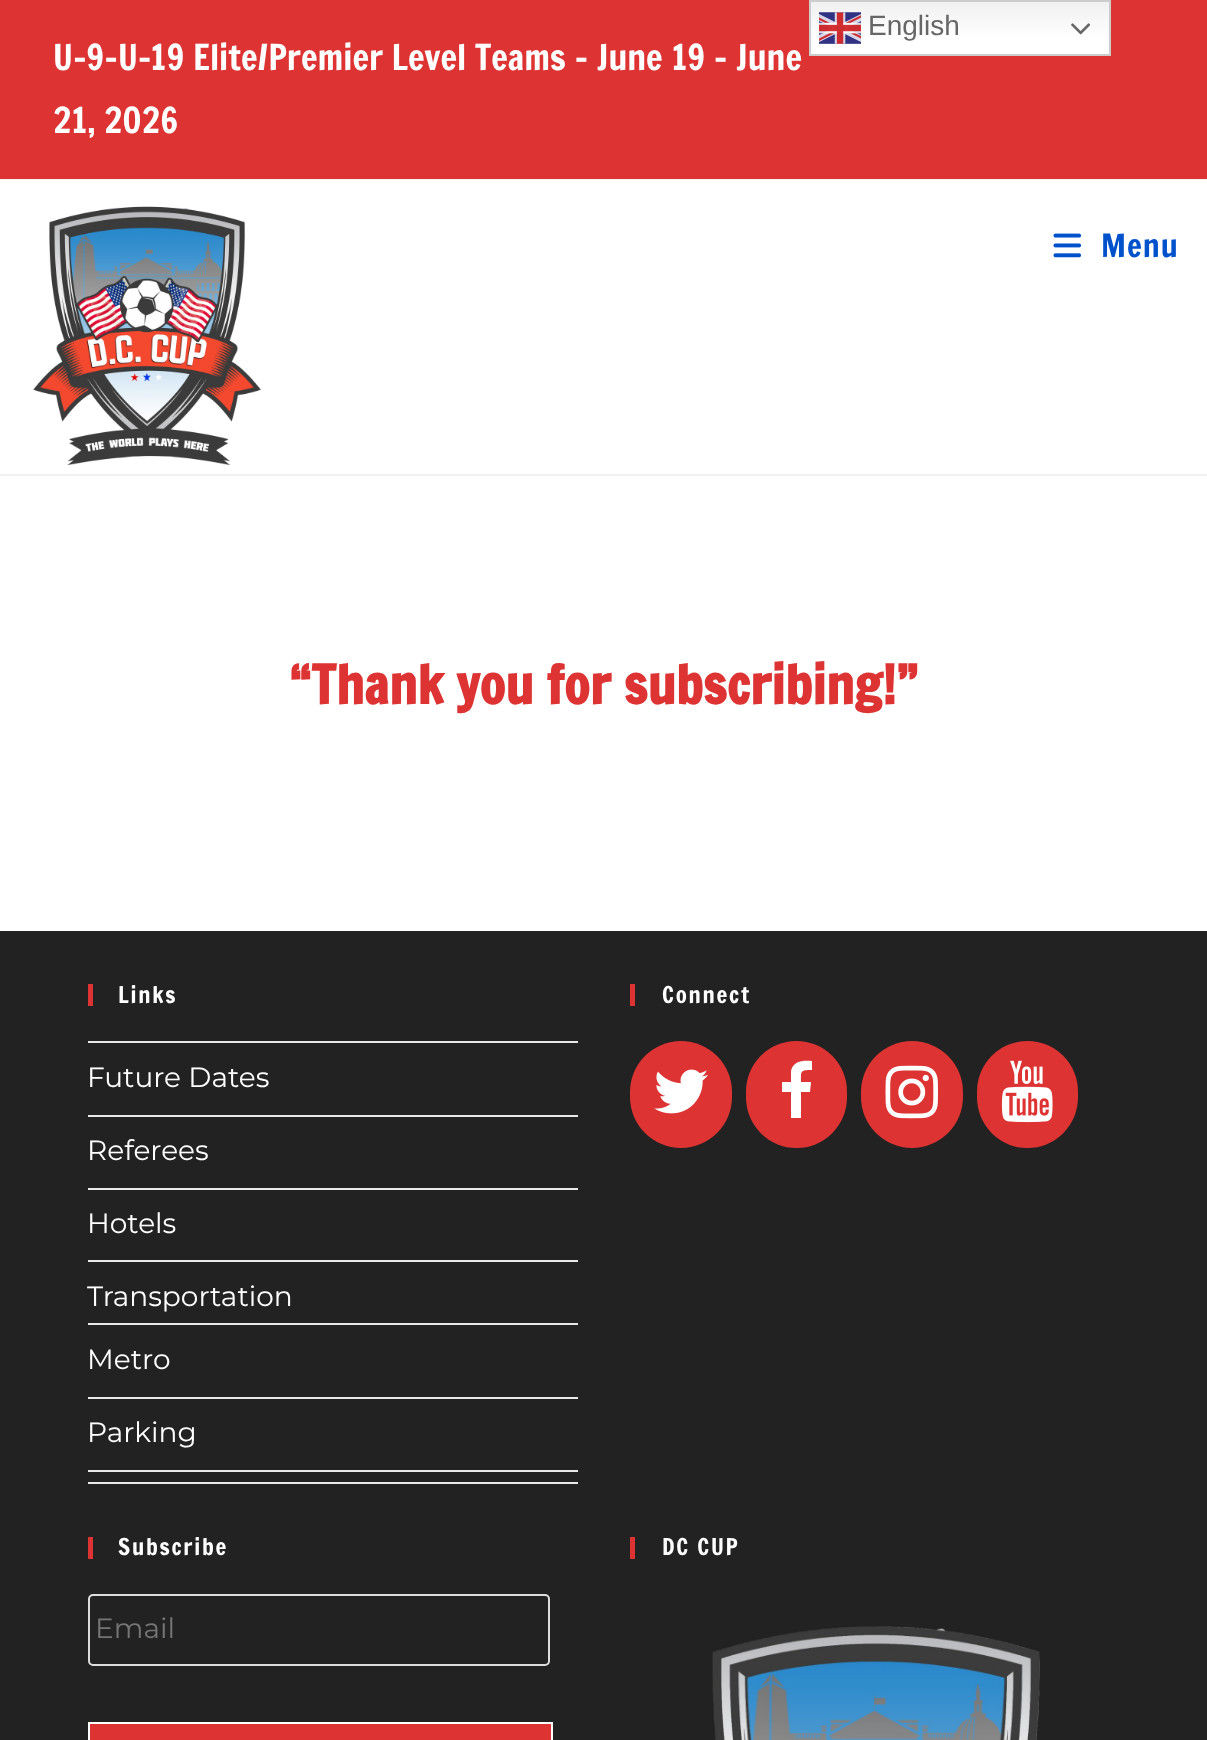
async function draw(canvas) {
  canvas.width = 1207
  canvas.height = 1740
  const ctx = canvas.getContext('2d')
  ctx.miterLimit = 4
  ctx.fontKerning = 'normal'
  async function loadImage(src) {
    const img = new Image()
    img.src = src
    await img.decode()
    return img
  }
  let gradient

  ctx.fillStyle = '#fff'
  ctx.fillRect(0, 0, 1207, 1740)
  ctx.fillStyle = '#d33'
  ctx.fillRect(0, 0, 1207, 179)
  gradient = ctx.createLinearGradient(960, 0, 960, 56)
  gradient.addColorStop(0, '#efefef')
  gradient.addColorStop(0.7, '#fff')
  ctx.fillStyle = gradient
  ctx.fillRect(811, 2, 298, 52)
  ctx.strokeStyle = '#ccc'
  ctx.lineWidth = 2
  ctx.strokeRect(810, 1, 300, 54)
  ctx.drawImage(await loadImage('image0.png'), 819, 12, 42, 32)
  ctx.font = '28px Liberation Sans'
  ctx.fillStyle = '#666'
  ctx.fillText('English', 868, 35)
  ctx.drawImage(await loadImage('image1.png'), 1071, 23, 19, 12)
  ctx.fillStyle = '#f1f1f1'
  ctx.fillRect(0, 179, 1207, 1)
  ctx.font = '35px Francois One'
  ctx.fillStyle = '#fff'
  ctx.fillText('U-9-U-19 Elite/Premier Level Teams - June 19 - June', 53, 70)
  ctx.fillText('21, 2026', 53, 133)
  ctx.fillStyle = '#f1f1f1'
  ctx.fillRect(0, 474, 1207, 2)
  ctx.drawImage(await loadImage('image2.png'), 33, 206, 228, 259)
  ctx.drawImage(await loadImage('image3.png'), 1053, 233, 29, 25)
  ctx.letterSpacing = '1px'
  ctx.font = '31.5px Francois One'
  ctx.fillStyle = '#0051cc'
  ctx.fillText('Menu', 1101, 257)
  ctx.letterSpacing = '0px'
  ctx.font = 'bold 52.5px Francois One'
  ctx.fillStyle = '#d33'
  ctx.fillText('“Thank you for subscribing!”', 289, 704)
  ctx.fillStyle = '#222'
  ctx.fillRect(0, 931, 1207, 809)
  ctx.fillStyle = '#d33'
  ctx.fillRect(88, 984, 5, 22)
  ctx.letterSpacing = '1.75px'
  ctx.font = '22.75px Francois One'
  ctx.fillStyle = '#fff'
  ctx.fillText('Links', 118, 1003)
  ctx.fillStyle = '#e9e9e9'
  ctx.fillRect(88, 1041, 490, 2)
  ctx.fillRect(88, 1115, 490, 2)
  ctx.letterSpacing = '0px'
  ctx.font = '28px Montserrat'
  ctx.fillStyle = '#fff'
  ctx.fillText('Future Dates', 87, 1087)
  ctx.fillStyle = '#e9e9e9'
  ctx.fillRect(88, 1188, 490, 2)
  ctx.fillStyle = '#fff'
  ctx.fillText('Referees', 87, 1160)
  ctx.fillStyle = '#e9e9e9'
  ctx.fillRect(88, 1260, 490, 2)
  ctx.fillStyle = '#fff'
  ctx.fillText('Hotels', 87, 1233)
  ctx.fillStyle = '#e9e9e9'
  ctx.fillRect(88, 1482, 490, 2)
  ctx.fillStyle = '#fff'
  ctx.fillText('Transportation', 87, 1306)
  ctx.fillStyle = '#e9e9e9'
  ctx.fillRect(88, 1323, 490, 2)
  ctx.fillRect(88, 1397, 490, 2)
  ctx.fillStyle = '#fff'
  ctx.fillText('Metro', 87, 1369)
  ctx.fillStyle = '#e9e9e9'
  ctx.fillRect(88, 1470, 490, 2)
  ctx.fillStyle = '#fff'
  ctx.fillText('Parking', 87, 1442)
  ctx.fillStyle = '#d33'
  ctx.fillRect(630, 984, 5, 22)
  ctx.letterSpacing = '1.75px'
  ctx.font = '22.75px Francois One'
  ctx.fillStyle = '#fff'
  ctx.fillText('Connect', 662, 1003)
  ctx.fillStyle = '#d33'
  ctx.beginPath()
  ctx.roundRect(630, 1041, 102, 107, 51)
  ctx.fill()
  ctx.drawImage(await loadImage('image4.png'), 654, 1069, 54, 45)
  ctx.beginPath()
  ctx.roundRect(746, 1041, 101, 107, 50.5)
  ctx.fill()
  ctx.fillStyle = '#fff'
  ctx.beginPath()
  ctx.moveTo(812, 1061)
  ctx.lineTo(812, 1070)
  ctx.bezierCurveTo(800, 1070, 801, 1071, 801, 1082)
  ctx.lineTo(811, 1082)
  ctx.lineTo(810, 1092)
  ctx.lineTo(801, 1092)
  ctx.lineTo(801, 1118)
  ctx.lineTo(791, 1118)
  ctx.lineTo(791, 1092)
  ctx.lineTo(782, 1092)
  ctx.lineTo(782, 1082)
  ctx.lineTo(791, 1082)
  ctx.lineTo(791, 1071)
  ctx.bezierCurveTo(793, 1061, 803, 1060, 812, 1061)
  ctx.closePath()
  ctx.fill()
  ctx.fillStyle = '#d33'
  ctx.beginPath()
  ctx.roundRect(861, 1041, 102, 107, 51)
  ctx.fill()
  ctx.drawImage(await loadImage('image5.png'), 885, 1065, 53, 54)
  ctx.beginPath()
  ctx.roundRect(977, 1041, 101, 107, 50.5)
  ctx.fill()
  ctx.drawImage(await loadImage('image6.png'), 1001, 1060, 52, 63)
  ctx.fillRect(88, 1537, 5, 22)
  ctx.fillStyle = '#fff'
  ctx.fillText('Subscribe', 118, 1555)
  ctx.beginPath()
  ctx.roundRect(89, 1595, 460, 70, 4)
  ctx.strokeStyle = '#ddd'
  ctx.stroke()
  ctx.letterSpacing = '0px'
  ctx.font = '28px Montserrat'
  ctx.fillStyle = '#757575'
  ctx.fillText('Email', 95, 1638)
  ctx.fillStyle = '#d33'
  ctx.beginPath()
  ctx.rect(89, 1723, 463, 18)
  ctx.fill()
  ctx.strokeStyle = '#fff'
  ctx.stroke()
  ctx.fillRect(630, 1537, 5, 22)
  ctx.letterSpacing = '1.75px'
  ctx.font = '22.75px Francois One'
  ctx.fillStyle = '#fff'
  ctx.fillText('DC CUP', 662, 1555)
  ctx.drawImage(await loadImage('image7.png'), 712, 1626, 328, 114)
}

draw(document.querySelector('canvas'))
